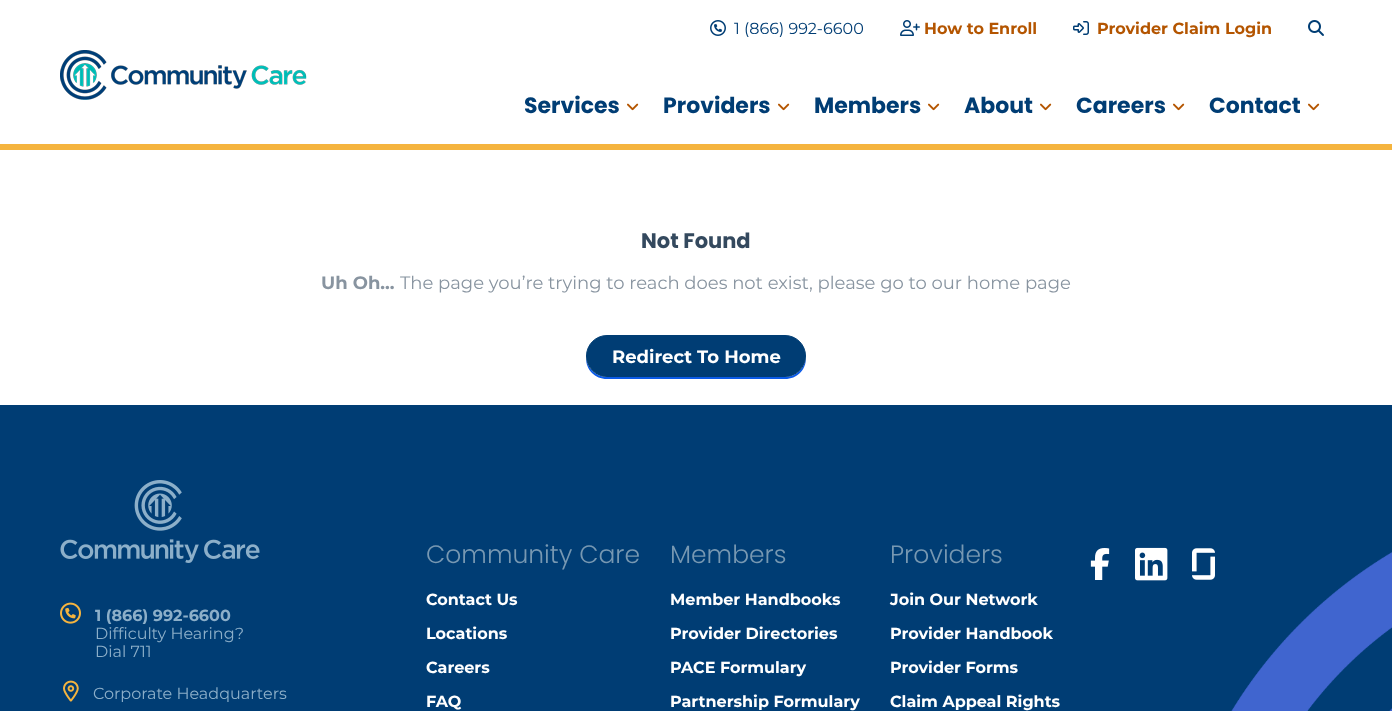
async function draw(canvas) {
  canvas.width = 1392
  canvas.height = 711
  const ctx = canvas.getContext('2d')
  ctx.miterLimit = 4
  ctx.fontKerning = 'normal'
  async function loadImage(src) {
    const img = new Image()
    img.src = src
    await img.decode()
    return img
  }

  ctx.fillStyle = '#fff'
  ctx.fillRect(0, 0, 1392, 711)
  ctx.drawImage(await loadImage('image0.png'), 710, 20, 16, 16)
  ctx.font = '16px Montserrat'
  ctx.fillStyle = '#003d74'
  ctx.fillText('1 (866) 992-6600', 734, 34)
  ctx.drawImage(await loadImage('image1.png'), 900, 20, 20, 16)
  ctx.font = 'bold 16px Montserrat'
  ctx.fillStyle = '#b45500'
  ctx.fillText('How to Enroll', 924, 34)
  ctx.drawImage(await loadImage('image2.png'), 1073, 21, 16, 14)
  ctx.fillText('Provider Claim Login', 1097, 34)
  ctx.drawImage(await loadImage('image3.png'), 1308, 20, 16, 16)
  ctx.drawImage(await loadImage('image4.png'), 60, 50, 247, 50)
  ctx.font = 'bold 22px Poppins'
  ctx.fillStyle = '#003d74'
  ctx.fillText('Services', 524, 113)
  ctx.drawImage(await loadImage('image5.png'), 627, 103, 12, 8)
  ctx.fillText('Providers', 663, 113)
  ctx.drawImage(await loadImage('image5.png'), 778, 103, 12, 8)
  ctx.fillText('Members', 814, 113)
  ctx.drawImage(await loadImage('image5.png'), 928, 103, 12, 8)
  ctx.fillText('About', 964, 113)
  ctx.drawImage(await loadImage('image5.png'), 1040, 103, 12, 8)
  ctx.fillText('Careers', 1076, 113)
  ctx.drawImage(await loadImage('image5.png'), 1173, 103, 12, 8)
  ctx.fillText('Contact', 1209, 113)
  ctx.drawImage(await loadImage('image5.png'), 1308, 103, 12, 8)
  ctx.fillStyle = '#f5b43e'
  ctx.fillRect(0, 144, 1392, 6)
  ctx.font = 'bold 21px Poppins'
  ctx.fillStyle = '#34495e'
  ctx.fillText('Not Found', 641, 248)
  ctx.font = 'bold 18px Montserrat'
  ctx.fillStyle = '#8894a0'
  ctx.fillText('Uh Oh...', 321, 289)
  ctx.font = '18px Montserrat'
  ctx.fillText('The page you’re trying to reach does not exist, please go to our home page', 400, 289)
  ctx.fillStyle = '#0c5be7'
  ctx.beginPath()
  ctx.moveTo(586, 357)
  ctx.lineTo(586, 358)
  ctx.bezierCurveTo(586, 370, 595, 379, 607, 379)
  ctx.lineTo(785, 379)
  ctx.bezierCurveTo(797, 379, 806, 370, 806, 358)
  ctx.lineTo(806, 357)
  ctx.bezierCurveTo(805, 368, 796, 377, 785, 377)
  ctx.lineTo(607, 377)
  ctx.bezierCurveTo(596, 377, 587, 368, 586, 357)
  ctx.closePath()
  ctx.fill()
  ctx.fillStyle = '#003d74'
  ctx.beginPath()
  ctx.roundRect(586.5, 335.5, 219, 41, 20.5)
  ctx.fill()
  ctx.strokeStyle = '#003d74'
  ctx.stroke()
  ctx.font = 'bold 18px Montserrat'
  ctx.fillStyle = '#fff'
  ctx.fillText('Redirect To Home', 612, 363)
  ctx.fillStyle = '#003d74'
  ctx.fillRect(0, 405, 1392, 306)
  ctx.drawImage(await loadImage('image6.png'), 1231, 552, 161, 159)
  ctx.drawImage(await loadImage('image7.png'), 60, 480, 200, 83)
  ctx.drawImage(await loadImage('image8.png'), 60, 602, 21, 22)
  ctx.font = 'bold 16px Montserrat'
  ctx.fillStyle = '#8cafc9'
  ctx.fillText('1 (866) 992-6600', 95, 621)
  ctx.font = '16px Montserrat'
  ctx.fillText('Difficulty Hearing?', 95, 639)
  ctx.fillText('Dial 711', 95, 657)
  ctx.drawImage(await loadImage('image9.png'), 63, 680, 16, 22)
  ctx.fillText('Corporate Headquarters', 93, 699)
  ctx.font = '300 25px Poppins'
  ctx.fillStyle = '#7798b2'
  ctx.fillText('Community Care', 426, 563)
  ctx.font = 'bold 16px Montserrat'
  ctx.fillStyle = '#fff'
  ctx.fillText('Contact Us', 426, 605)
  ctx.fillText('Locations', 426, 639)
  ctx.fillText('Careers', 426, 673)
  ctx.fillText('FAQ', 426, 707)
  ctx.font = '300 25px Poppins'
  ctx.fillStyle = '#7798b2'
  ctx.fillText('Members', 670, 563)
  ctx.font = 'bold 16px Montserrat'
  ctx.fillStyle = '#fff'
  ctx.fillText('Member Handbooks', 670, 605)
  ctx.fillText('Provider Directories', 670, 639)
  ctx.fillText('PACE Formulary', 670, 673)
  ctx.fillText('Partnership Formulary', 670, 707)
  ctx.font = '300 25px Poppins'
  ctx.fillStyle = '#7798b2'
  ctx.fillText('Providers', 890, 563)
  ctx.font = 'bold 16px Montserrat'
  ctx.fillStyle = '#fff'
  ctx.fillText('Join Our Network', 890, 605)
  ctx.fillText('Provider Handbook', 890, 639)
  ctx.fillText('Provider Forms', 890, 673)
  ctx.fillText('Claim Appeal Rights', 890, 707)
  ctx.drawImage(await loadImage('image10.png'), 1090, 548, 20, 32)
  ctx.drawImage(await loadImage('image11.png'), 1135, 547, 33, 34)
  ctx.drawImage(await loadImage('image12.png'), 1192, 548, 23, 32)
}

draw(document.querySelector('canvas'))
